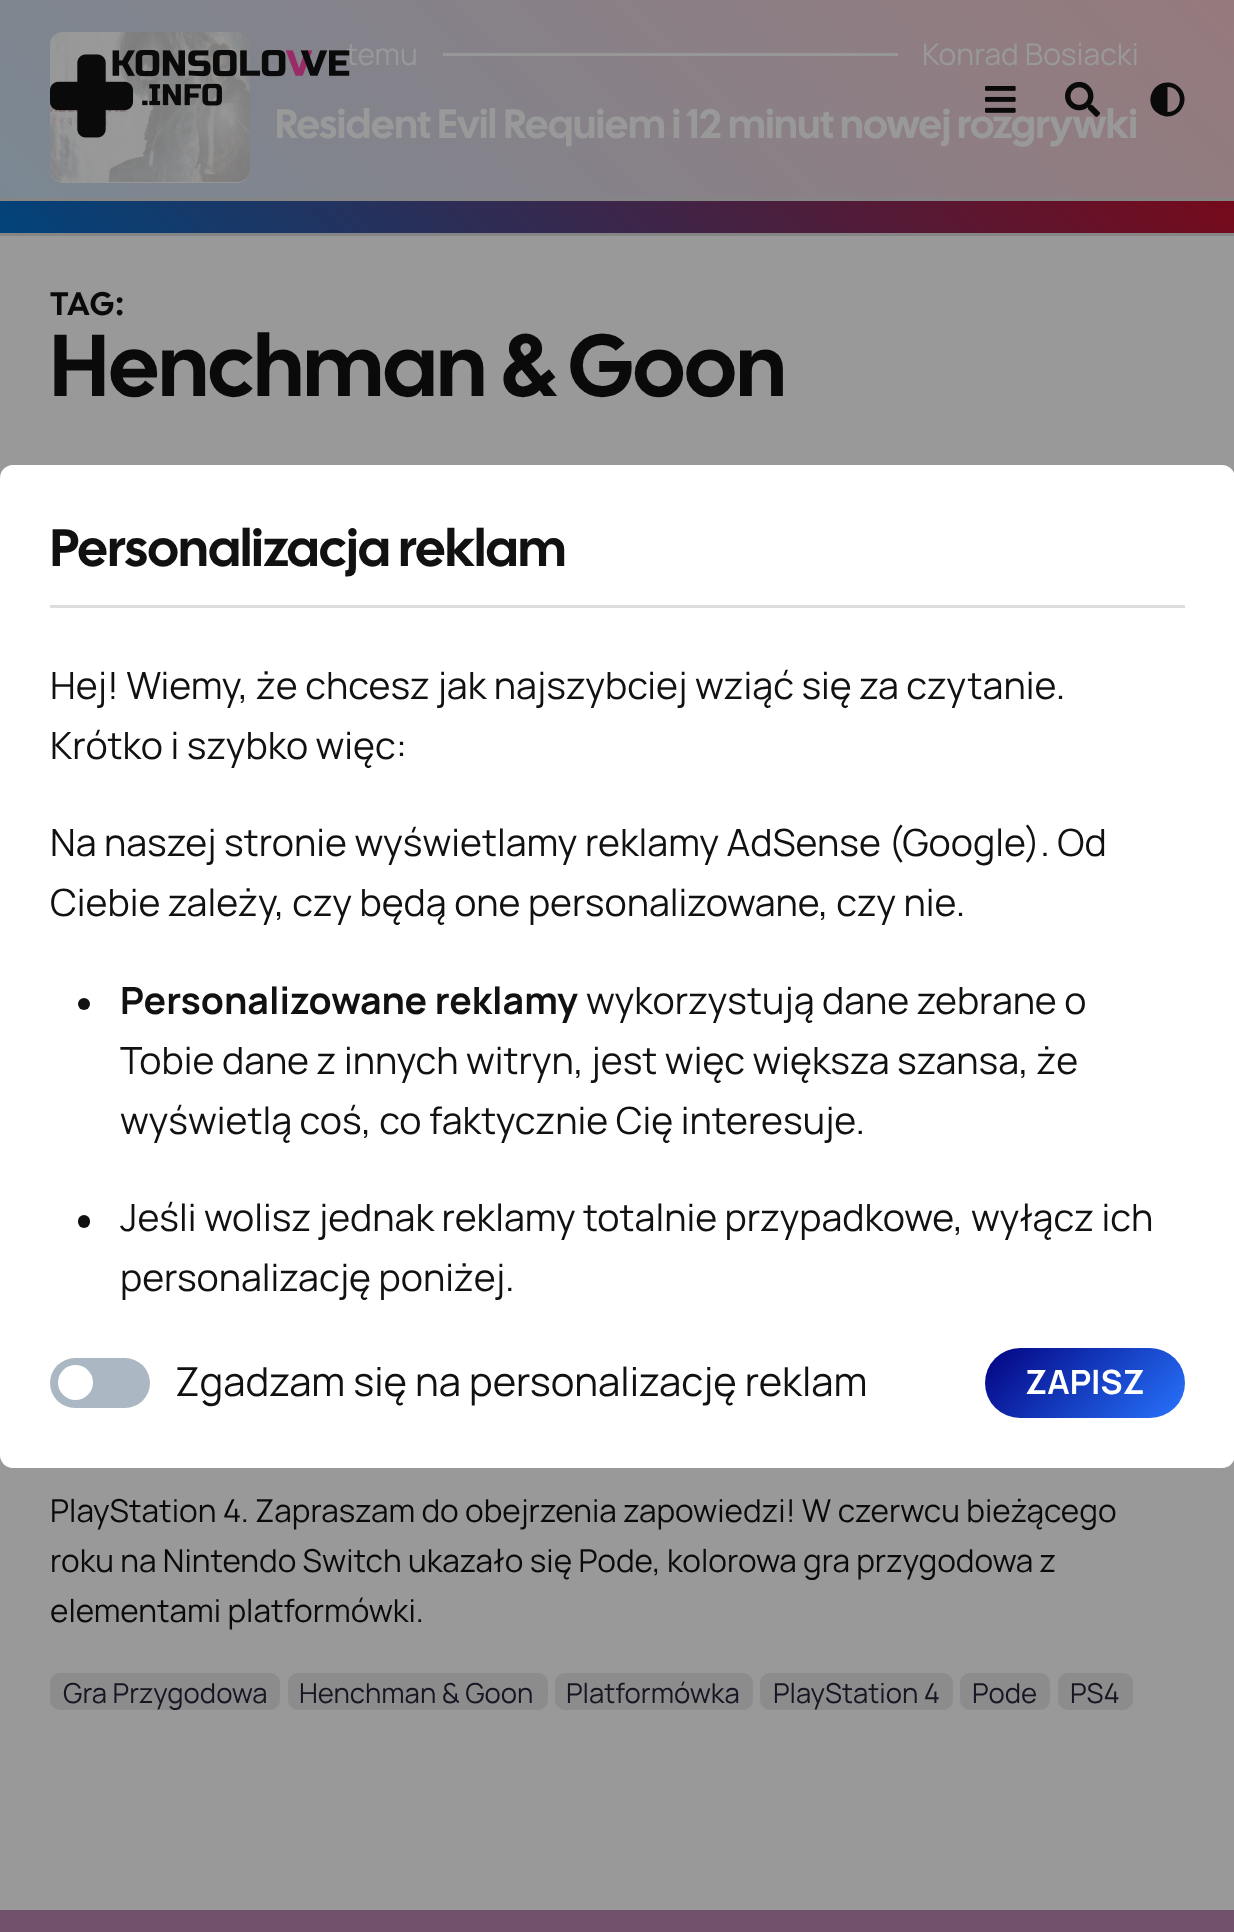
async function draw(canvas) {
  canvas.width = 1234
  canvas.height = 1932
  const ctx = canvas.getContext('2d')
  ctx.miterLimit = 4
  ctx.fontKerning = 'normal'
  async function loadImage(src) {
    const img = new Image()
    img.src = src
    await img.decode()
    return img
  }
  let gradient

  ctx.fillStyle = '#999'
  ctx.fillRect(0, 0, 1234, 1932)
  gradient = ctx.createLinearGradient(246, 479, 989, -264)
  gradient.addColorStop(0, '#01437a')
  gradient.addColorStop(1, '#8a000b')
  ctx.fillStyle = gradient
  ctx.fillRect(0, 201, 1234, 32)
  gradient = ctx.createLinearGradient(246, 479, 989, -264)
  gradient.addColorStop(0, '#7a8893')
  gradient.addColorStop(1, '#967a7d')
  ctx.fillStyle = gradient
  ctx.fillRect(0, 0, 1234, 198)
  ctx.fillStyle = '#858585'
  ctx.fillRect(0, 233, 1234, 3)
  ctx.fillStyle = '#979797'
  ctx.beginPath()
  ctx.roundRect(50, 33, 200, 150, 13)
  ctx.fill()
  ctx.drawImage(await loadImage('image0.png'), 50, 32, 200, 150)
  ctx.font = '30px Manrope'
  ctx.fillStyle = '#999'
  ctx.fillText('temu', 346, 65)
  ctx.fillStyle = '#979797'
  ctx.fillRect(443, 53, 455, 3)
  ctx.fillStyle = '#999'
  ctx.fillText('Konrad Bosiacki', 922, 65)
  ctx.wordSpacing = '-0.25px'
  ctx.font = '40.95px Cal Sans'
  ctx.fillText('Resident Evil Requiem i 12 minut nowej rozgrywki', 275, 138)
  ctx.fillStyle = '#858585'
  ctx.fillRect(0, 198, 1234, 3)
  ctx.drawImage(await loadImage('image1.png'), 50, 50, 300, 88)
  ctx.drawImage(await loadImage('image2.png'), 985, 86, 31, 27)
  ctx.drawImage(await loadImage('image3.png'), 1065, 81, 35, 36)
  ctx.fillStyle = '#0a0a0a'
  ctx.beginPath()
  ctx.moveTo(1155.5, 111.5)
  ctx.bezierCurveTo(1144, 100, 1153.5, 81, 1169, 82.5)
  ctx.bezierCurveTo(1173, 83, 1176.5, 84.5, 1179.5, 87.5)
  ctx.bezierCurveTo(1191, 98.5, 1181.5, 117.5, 1166, 116.5)
  ctx.bezierCurveTo(1162, 116, 1158.5, 114, 1155.5, 111.5)
  ctx.closePath()
  ctx.moveTo(1167.5, 112)
  ctx.bezierCurveTo(1184, 112, 1184, 87, 1167.5, 87)
  ctx.closePath()
  ctx.fill()
  ctx.letterSpacing = '2.5px'
  ctx.wordSpacing = '0px'
  ctx.font = '32.5px Cal Sans'
  ctx.fillText('TAG:', 50, 315)
  ctx.letterSpacing = '0px'
  ctx.font = '87.5px Cal Sans'
  ctx.fillText('Henchman & Goon', 50, 396)
  ctx.font = '31.5px Manrope'
  ctx.fillText('PlayStation 4. Zapraszam do obejrzenia zapowiedzi! W czerwcu bieżącego', 50, 1522)
  ctx.fillText('roku na Nintendo Switch ukazało się Pode, kolorowa gra przygodowa z', 50, 1572)
  ctx.fillText('elementami platformówki.', 50, 1622)
  ctx.fillStyle = '#8c8c8d'
  ctx.beginPath()
  ctx.roundRect(50, 1673, 230, 37, 10)
  ctx.fill()
  ctx.font = '27.5px Manrope'
  ctx.fillStyle = '#161622'
  ctx.fillText('Gra Przygodowa', 63, 1703)
  ctx.fillStyle = '#8c8c8d'
  ctx.beginPath()
  ctx.roundRect(288, 1673, 260, 37, 10)
  ctx.fill()
  ctx.fillStyle = '#161622'
  ctx.fillText('Henchman & Goon', 299, 1703)
  ctx.fillStyle = '#8c8c8d'
  ctx.beginPath()
  ctx.roundRect(555, 1673, 198, 37, 10)
  ctx.fill()
  ctx.fillStyle = '#161622'
  ctx.fillText('Platformówka', 566, 1703)
  ctx.fillStyle = '#8c8c8d'
  ctx.beginPath()
  ctx.roundRect(760, 1673, 193, 37, 10)
  ctx.fill()
  ctx.fillStyle = '#161622'
  ctx.fillText('PlayStation 4', 773, 1703)
  ctx.fillStyle = '#8c8c8d'
  ctx.beginPath()
  ctx.roundRect(960, 1673, 90, 37, 10)
  ctx.fill()
  ctx.fillStyle = '#161622'
  ctx.fillText('Pode', 972, 1703)
  ctx.fillStyle = '#8c8c8d'
  ctx.beginPath()
  ctx.roundRect(1058, 1673, 75, 37, 10)
  ctx.fill()
  ctx.fillStyle = '#161622'
  ctx.fillText('PS4', 1070, 1703)
  ctx.fillStyle = '#fff'
  ctx.beginPath()
  ctx.roundRect(0, 465, 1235, 1003, 13)
  ctx.fill()
  ctx.fillStyle = '#ddd'
  ctx.fillRect(50, 605, 1135, 3)
  ctx.font = '52.5px Cal Sans'
  ctx.fillStyle = '#111'
  ctx.fillText('Personalizacja reklam', 50, 566)
  ctx.font = '37.5px Manrope'
  ctx.fillText('Hej! Wiemy, że chcesz jak najszybciej wziąć się za czytanie.', 50, 699)
  ctx.fillText('Krótko i szybko więc:', 50, 759)
  ctx.fillText('Na naszej stronie wyświetlamy reklamy AdSense (Google). Od', 50, 856)
  ctx.fillText('Ciebie zależy, czy będą one personalizowane, czy nie.', 50, 916)
  ctx.beginPath()
  ctx.arc(84, 1004, 6, 0, 2 * Math.PI)
  ctx.fill()
  ctx.font = 'bold 37.5px Manrope'
  ctx.fillText('Personalizowane reklamy', 120, 1014)
  ctx.font = '37.5px Manrope'
  ctx.fillText('wykorzystują dane zebrane o', 586, 1014)
  ctx.fillText('Tobie dane z innych witryn, jest więc większa szansa, że', 120, 1074)
  ctx.fillText('wyświetlą coś, co faktycznie Cię interesuje.', 120, 1134)
  ctx.beginPath()
  ctx.roundRect(78, 1215, 12, 13, 6)
  ctx.fill()
  ctx.fillText('Jeśli wolisz jednak reklamy totalnie przypadkowe, wyłącz ich', 120, 1231)
  ctx.fillText('personalizację poniżej.', 120, 1291)
  ctx.fillStyle = '#abb8c3'
  ctx.beginPath()
  ctx.roundRect(50, 1358, 100, 50, 25)
  ctx.fill()
  ctx.fillStyle = '#fff'
  ctx.beginPath()
  ctx.arc(75.5, 1382.5, 17.5, 0, 2 * Math.PI)
  ctx.fill()
  ctx.font = '40px Manrope'
  ctx.fillStyle = '#111'
  ctx.fillText('Zgadzam się na personalizację reklam', 175, 1396)
  gradient = ctx.createLinearGradient(1018, 1315, 1153, 1450)
  gradient.addColorStop(0, '#020381')
  gradient.addColorStop(1, '#2874fc')
  ctx.fillStyle = gradient
  ctx.beginPath()
  ctx.roundRect(985, 1348, 200, 70, 35)
  ctx.fill()
  ctx.font = 'bold 33.5px Manrope'
  ctx.fillStyle = '#fff'
  ctx.fillText('ZAPISZ', 1025, 1394)
  ctx.fillStyle = '#70526d'
  ctx.fillRect(0, 1910, 1234, 22)
}

draw(document.querySelector('canvas'))
